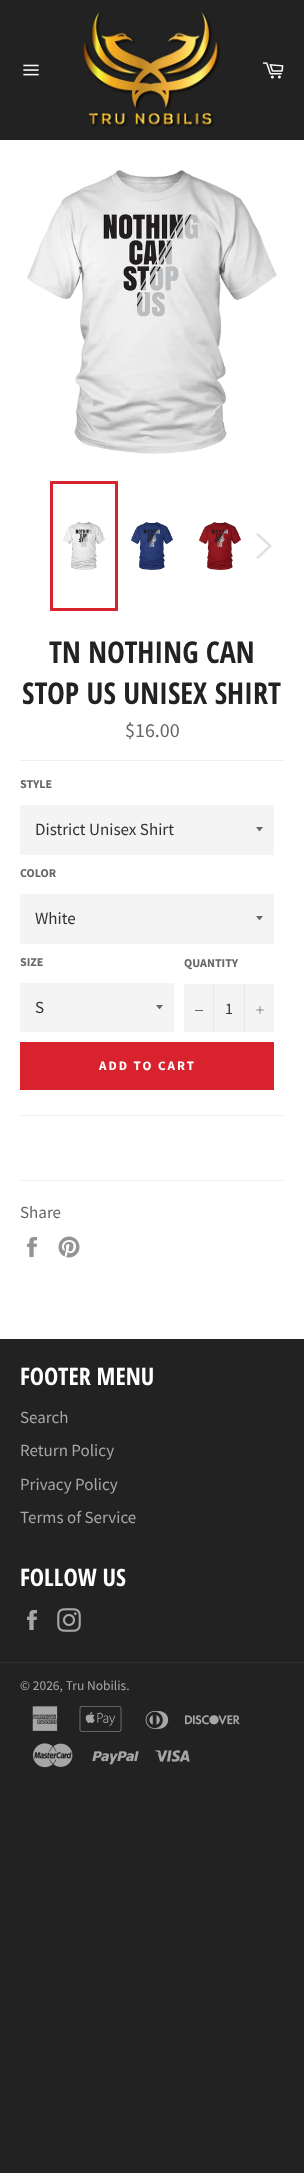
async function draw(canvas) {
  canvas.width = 304
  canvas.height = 2173
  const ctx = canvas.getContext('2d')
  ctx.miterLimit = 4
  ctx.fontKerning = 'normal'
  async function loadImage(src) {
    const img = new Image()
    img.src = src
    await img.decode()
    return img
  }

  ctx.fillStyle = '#222'
  ctx.fillRect(0, 0, 304, 2173)
  ctx.drawImage(await loadImage('image0.png'), 23, 64, 16, 12)
  ctx.drawImage(await loadImage('image1.png'), 83, 12, 137, 115)
  ctx.drawImage(await loadImage('image2.png'), 262, 62, 22, 17)
  ctx.fillStyle = '#fff'
  ctx.fillRect(0, 140, 304, 1199)
  ctx.drawImage(await loadImage('image3.png'), 27, 170, 250, 284)
  ctx.drawImage(await loadImage('image4.png'), 63, 522, 42, 48)
  ctx.strokeStyle = '#d8232f'
  ctx.lineWidth = 3
  ctx.strokeRect(51.5, 482.5, 65, 127)
  ctx.drawImage(await loadImage('image5.png'), 130, 522, 43, 48)
  ctx.drawImage(await loadImage('image6.png'), 198, 522, 43, 48)
  ctx.fillStyle = '#e0e0e0'
  ctx.beginPath()
  ctx.moveTo(256, 534.5)
  ctx.lineTo(258, 533)
  ctx.lineTo(272, 546)
  ctx.lineTo(258, 559)
  ctx.lineTo(256, 557.5)
  ctx.lineTo(268.5, 546)
  ctx.closePath()
  ctx.fill()
  ctx.font = 'bold 30px Open Sans Condensed'
  ctx.fillStyle = '#222'
  ctx.fillText('TN NOTHING CAN', 49, 663)
  ctx.fillText('STOP US UNISEX SHIRT', 22, 704)
  ctx.font = '20px Source Sans Pro'
  ctx.fillStyle = '#666'
  ctx.fillText('$16.00', 125, 737)
  ctx.fillStyle = '#f0f0f0'
  ctx.fillRect(20, 760, 264, 1)
  ctx.font = 'bold 12px Source Sans Pro'
  ctx.fillStyle = '#666'
  ctx.fillText('STYLE', 20, 788)
  ctx.fillStyle = '#f4f4f4'
  ctx.fillRect(20, 805, 254, 50)
  ctx.fillStyle = '#666'
  ctx.beginPath()
  ctx.moveTo(256, 827)
  ctx.bezierCurveTo(260.5, 832.5, 258.5, 832.5, 263, 827)
  ctx.closePath()
  ctx.fill()
  ctx.font = '17px Source Sans Pro'
  ctx.fillStyle = '#333'
  ctx.fillText('District Unisex Shirt', 35, 835)
  ctx.font = 'bold 12px Source Sans Pro'
  ctx.fillStyle = '#666'
  ctx.fillText('COLOR', 20, 877)
  ctx.fillStyle = '#f4f4f4'
  ctx.fillRect(20, 894, 254, 50)
  ctx.fillStyle = '#666'
  ctx.beginPath()
  ctx.moveTo(256, 916)
  ctx.bezierCurveTo(260.5, 921.5, 258.5, 921.5, 263, 916)
  ctx.closePath()
  ctx.fill()
  ctx.font = '17px Source Sans Pro'
  ctx.fillStyle = '#333'
  ctx.fillText('White', 35, 924)
  ctx.font = 'bold 12px Source Sans Pro'
  ctx.fillStyle = '#666'
  ctx.fillText('SIZE', 20, 966)
  ctx.fillStyle = '#f4f4f4'
  ctx.fillRect(20, 983, 154, 49)
  ctx.fillStyle = '#666'
  ctx.beginPath()
  ctx.moveTo(156, 1005)
  ctx.bezierCurveTo(160.5, 1010.5, 158.5, 1010.5, 163, 1005)
  ctx.closePath()
  ctx.fill()
  ctx.font = '17px Source Sans Pro'
  ctx.fillStyle = '#333'
  ctx.fillText('S', 35, 1013)
  ctx.font = 'bold 12px Source Sans Pro'
  ctx.fillStyle = '#666'
  ctx.fillText('QUANTITY', 184, 967)
  ctx.fillStyle = '#f4f4f4'
  ctx.fillRect(184, 984, 90, 48)
  ctx.fillStyle = '#e7e7e7'
  ctx.fillRect(213, 984, 1, 48)
  ctx.fillStyle = '#666'
  ctx.fillRect(195, 1010, 8, 1)
  ctx.font = '16px Source Sans Pro'
  ctx.fillStyle = '#333'
  ctx.fillText('1', 225, 1014)
  ctx.fillStyle = '#e7e7e7'
  ctx.fillRect(244, 984, 1, 48)
  ctx.drawImage(await loadImage('image7.png'), 256, 1006, 8, 8)
  ctx.fillStyle = '#d8232f'
  ctx.fillRect(20, 1042, 254, 48)
  ctx.letterSpacing = '2px'
  ctx.font = 'bold 13px Source Sans Pro'
  ctx.fillStyle = '#fff'
  ctx.fillText('ADD TO CART', 99, 1070)
  ctx.fillStyle = '#f0f0f0'
  ctx.fillRect(20, 1115, 264, 1)
  ctx.fillRect(20, 1180, 264, 1)
  ctx.letterSpacing = '0px'
  ctx.font = '17px Source Sans Pro'
  ctx.fillStyle = '#666'
  ctx.fillText('Share', 20, 1218)
  ctx.drawImage(await loadImage('image8.png'), 27, 1237, 10, 20)
  ctx.drawImage(await loadImage('image9.png'), 58, 1236, 22, 22)
  ctx.font = 'bold 24px Open Sans Condensed'
  ctx.fillStyle = '#fff'
  ctx.fillText('FOOTER MENU', 20, 1385)
  ctx.font = '17px Source Sans Pro'
  ctx.fillStyle = '#a7a7a7'
  ctx.fillText('Search', 20, 1423)
  ctx.fillText('Return Policy', 20, 1456)
  ctx.fillText('Privacy Policy', 20, 1490)
  ctx.fillText('Terms of Service', 20, 1523)
  ctx.font = 'bold 24px Open Sans Condensed'
  ctx.fillStyle = '#fff'
  ctx.fillText('FOLLOW US', 20, 1586)
  ctx.drawImage(await loadImage('image10.png'), 27, 1610, 10, 20)
  ctx.drawImage(await loadImage('image11.png'), 57, 1608, 24, 24)
  ctx.fillStyle = '#2f2f2f'
  ctx.fillRect(0, 1662, 304, 1)
  ctx.font = '13.5px Source Sans Pro'
  ctx.fillStyle = '#a7a7a7'
  ctx.fillText('© 2026, Tru Nobilis.', 20, 1690)
  ctx.drawImage(await loadImage('image12.png'), 32, 1706, 26, 25)
  ctx.drawImage(await loadImage('image13.png'), 79, 1706, 43, 26)
  ctx.drawImage(await loadImage('image14.png'), 145, 1711, 24, 18)
  ctx.drawImage(await loadImage('image15.png'), 185, 1715, 55, 10)
  ctx.drawImage(await loadImage('image16.png'), 33, 1743, 40, 25)
  ctx.drawImage(await loadImage('image17.png'), 92, 1751, 47, 14)
  ctx.drawImage(await loadImage('image18.png'), 154, 1750, 36, 12)
}

draw(document.querySelector('canvas'))
